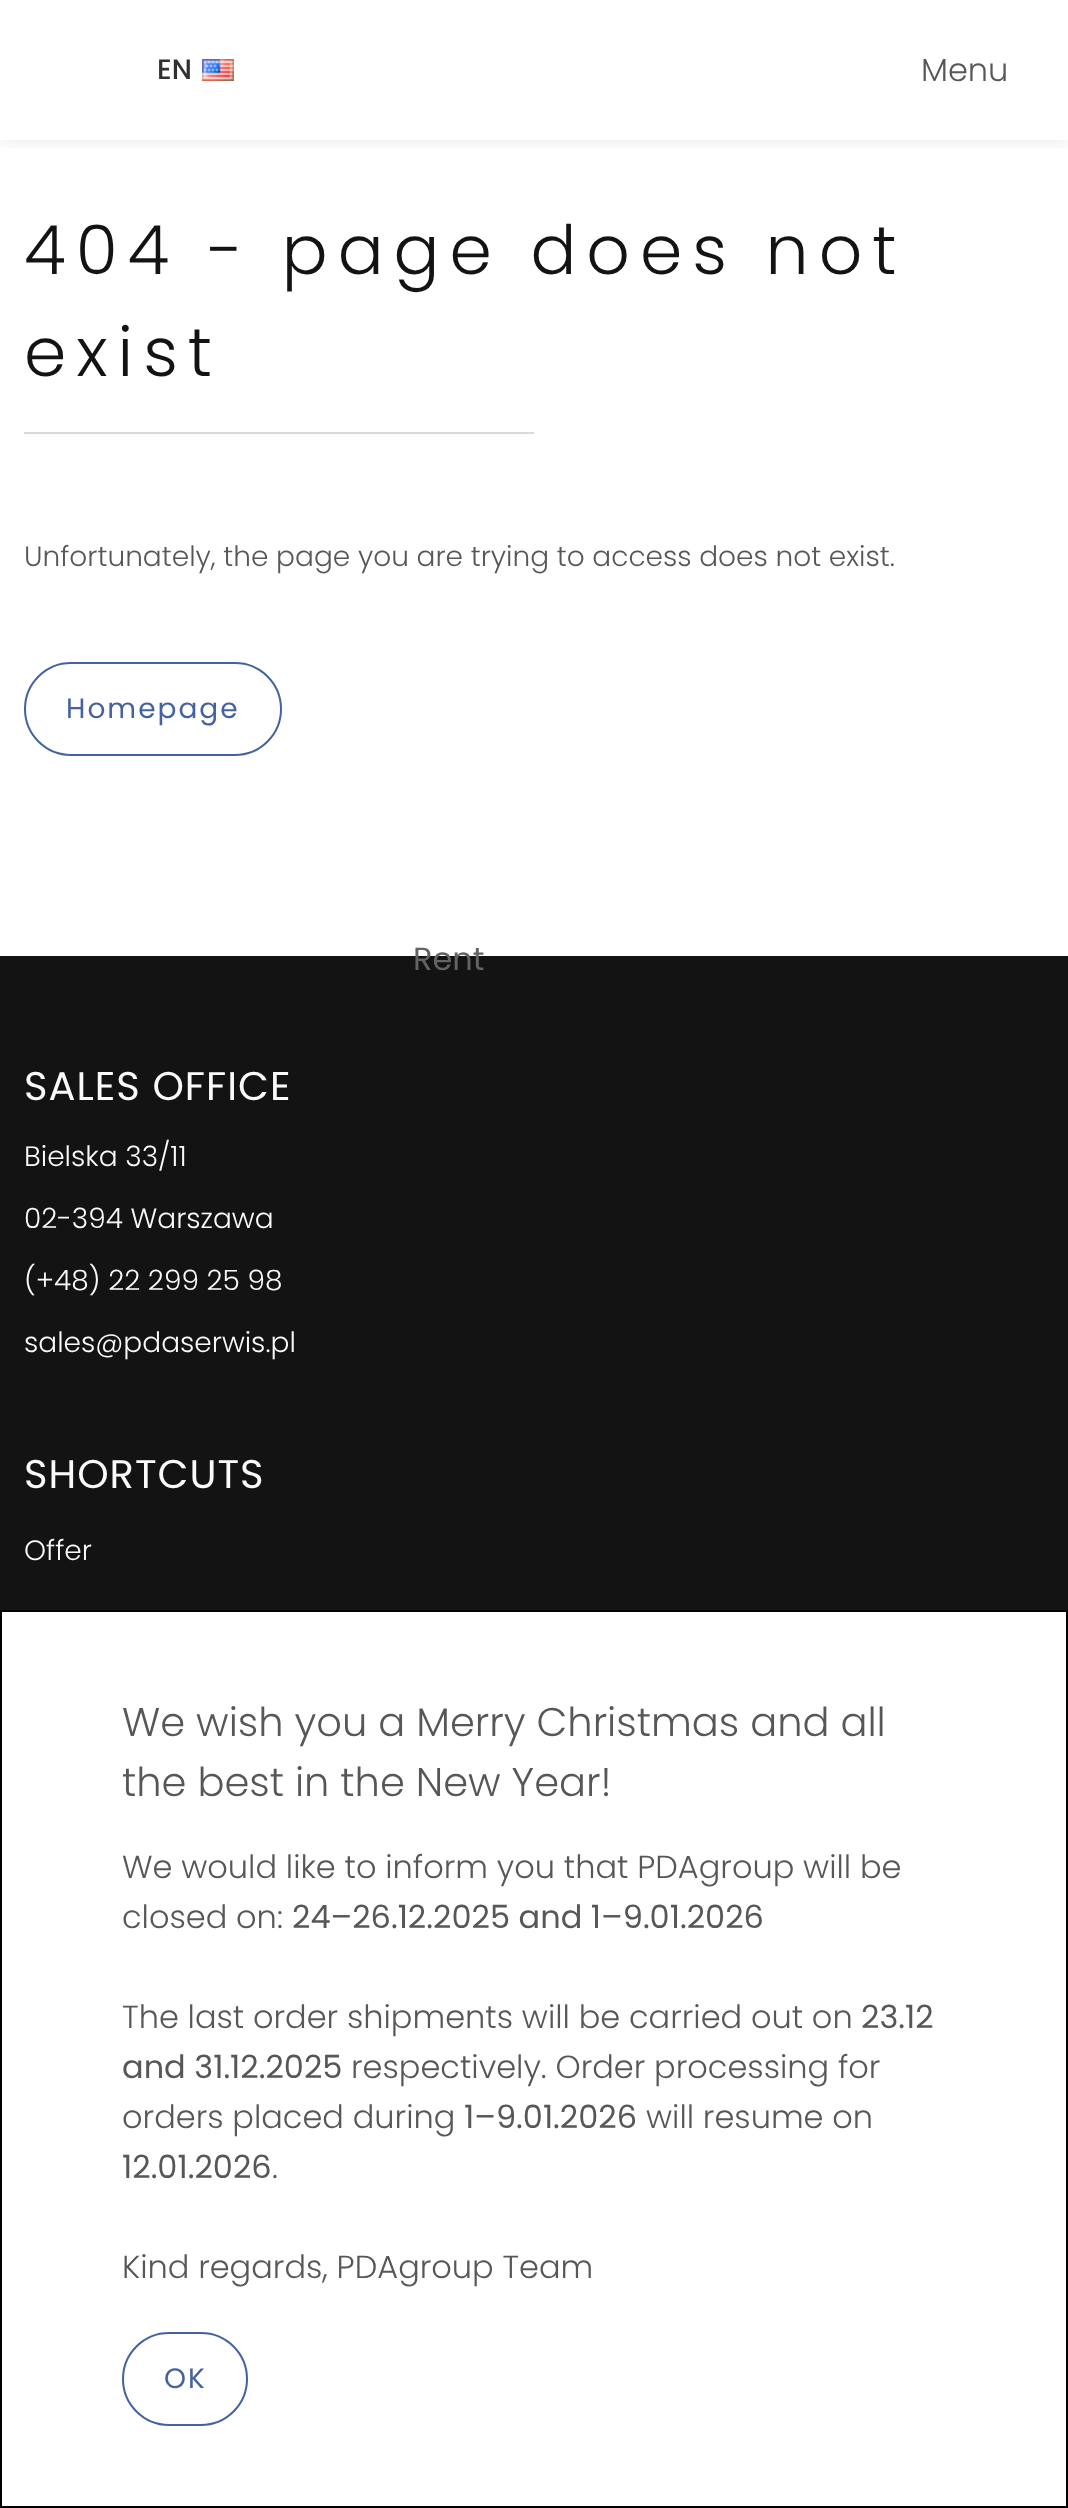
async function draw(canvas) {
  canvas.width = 1068
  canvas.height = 2508
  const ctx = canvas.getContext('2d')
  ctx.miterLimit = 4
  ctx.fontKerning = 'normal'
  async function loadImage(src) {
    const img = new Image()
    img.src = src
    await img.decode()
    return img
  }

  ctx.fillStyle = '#fff'
  ctx.fillRect(0, 0, 1068, 2508)
  ctx.save()
  ctx.beginPath()
  ctx.rect(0, 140, 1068, 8)
  ctx.clip()
  ctx.fillStyle = '#0505051a'
  ctx.filter = 'blur(10px)'
  ctx.beginPath()
  ctx.rect(0, 0, 1068, 140)
  ctx.fill()
  ctx.filter = 'none'
  ctx.restore()
  ctx.font = '500 28px Poppins'
  ctx.fillStyle = '#303030'
  ctx.fillText('EN', 157, 79)
  ctx.drawImage(await loadImage('image0.png'), 202, 59, 32, 22)
  ctx.font = '300 32px Poppins'
  ctx.fillStyle = '#575756'
  ctx.fillText('Menu', 921, 81)
  ctx.fillStyle = '#131313'
  ctx.fillRect(0, 956, 1068, 654)
  ctx.font = '32px Poppins'
  ctx.fillStyle = '#636363'
  ctx.fillText('Rent', 413, 970)
  ctx.letterSpacing = '10px'
  ctx.font = '300 68px Poppins'
  ctx.fillStyle = '#131313'
  ctx.fillText('404 - page does not', 24, 274)
  ctx.fillText('exist', 24, 376)
  ctx.fillStyle = '#d9d9d9'
  ctx.fillRect(24, 432, 510, 2)
  ctx.letterSpacing = '0px'
  ctx.font = '300 28px Poppins'
  ctx.fillStyle = '#575756'
  ctx.fillText('Unfortunately, the page you are trying to access does not exist.', 24, 566)
  ctx.beginPath()
  ctx.roundRect(25, 663, 256, 92, 46)
  ctx.strokeStyle = '#4462a1'
  ctx.lineWidth = 2
  ctx.stroke()
  ctx.letterSpacing = '2px'
  ctx.font = '28px Poppins'
  ctx.fillStyle = '#4462a1'
  ctx.fillText('Homepage', 66, 718)
  ctx.letterSpacing = '1px'
  ctx.font = '40px Poppins'
  ctx.fillStyle = '#f9fafa'
  ctx.fillText('SALES OFFICE', 24, 1100)
  ctx.letterSpacing = '0px'
  ctx.font = '300 28px Poppins'
  ctx.fillText('Bielska 33/11', 24, 1166)
  ctx.fillText('02-394 Warszawa', 24, 1228)
  ctx.fillText('(+48) 22 299 25 98', 24, 1290)
  ctx.fillText('sales@pdaserwis.pl', 24, 1352)
  ctx.letterSpacing = '1px'
  ctx.font = '40px Poppins'
  ctx.fillText('SHORTCUTS', 24, 1488)
  ctx.letterSpacing = '0px'
  ctx.font = '300 28px Poppins'
  ctx.fillText('Offer', 24, 1560)
  ctx.strokeStyle = '#000'
  ctx.strokeRect(1, 1611, 1066, 896)
  ctx.font = '300 40px Poppins'
  ctx.fillStyle = '#575756'
  ctx.fillText('We wish you a Merry Christmas and all', 122, 1736)
  ctx.fillText('the best in the New Year!', 122, 1796)
  ctx.font = '300 32px Poppins'
  ctx.fillText('We would like to inform you that PDAgroup will be', 122, 1878)
  ctx.fillText('closed on:', 122, 1928)
  ctx.font = '32px Poppins'
  ctx.fillText('24–26.12.2025 and 1–9.01.2026', 292, 1928)
  ctx.font = '300 32px Poppins'
  ctx.fillText('The last order shipments will be carried out on', 122, 2028)
  ctx.font = '32px Poppins'
  ctx.fillText('23.12', 861, 2028)
  ctx.fillText('and 31.12.2025', 122, 2078)
  ctx.font = '300 32px Poppins'
  ctx.fillText('respectively. Order processing for', 351, 2078)
  ctx.fillText('orders placed during', 122, 2128)
  ctx.font = '32px Poppins'
  ctx.fillText('1–9.01.2026', 464, 2128)
  ctx.font = '300 32px Poppins'
  ctx.fillText('will resume on', 646, 2128)
  ctx.font = '32px Poppins'
  ctx.fillText('12.01.2026', 122, 2178)
  ctx.font = '300 32px Poppins'
  ctx.fillText('.', 272, 2178)
  ctx.fillText('Kind regards, PDAgroup Team', 122, 2278)
  ctx.beginPath()
  ctx.roundRect(123, 2333, 124, 92, 46)
  ctx.strokeStyle = '#4462a1'
  ctx.stroke()
  ctx.letterSpacing = '2px'
  ctx.font = '28px Poppins'
  ctx.fillStyle = '#4462a1'
  ctx.fillText('OK', 164, 2388)
}

draw(document.querySelector('canvas'))
